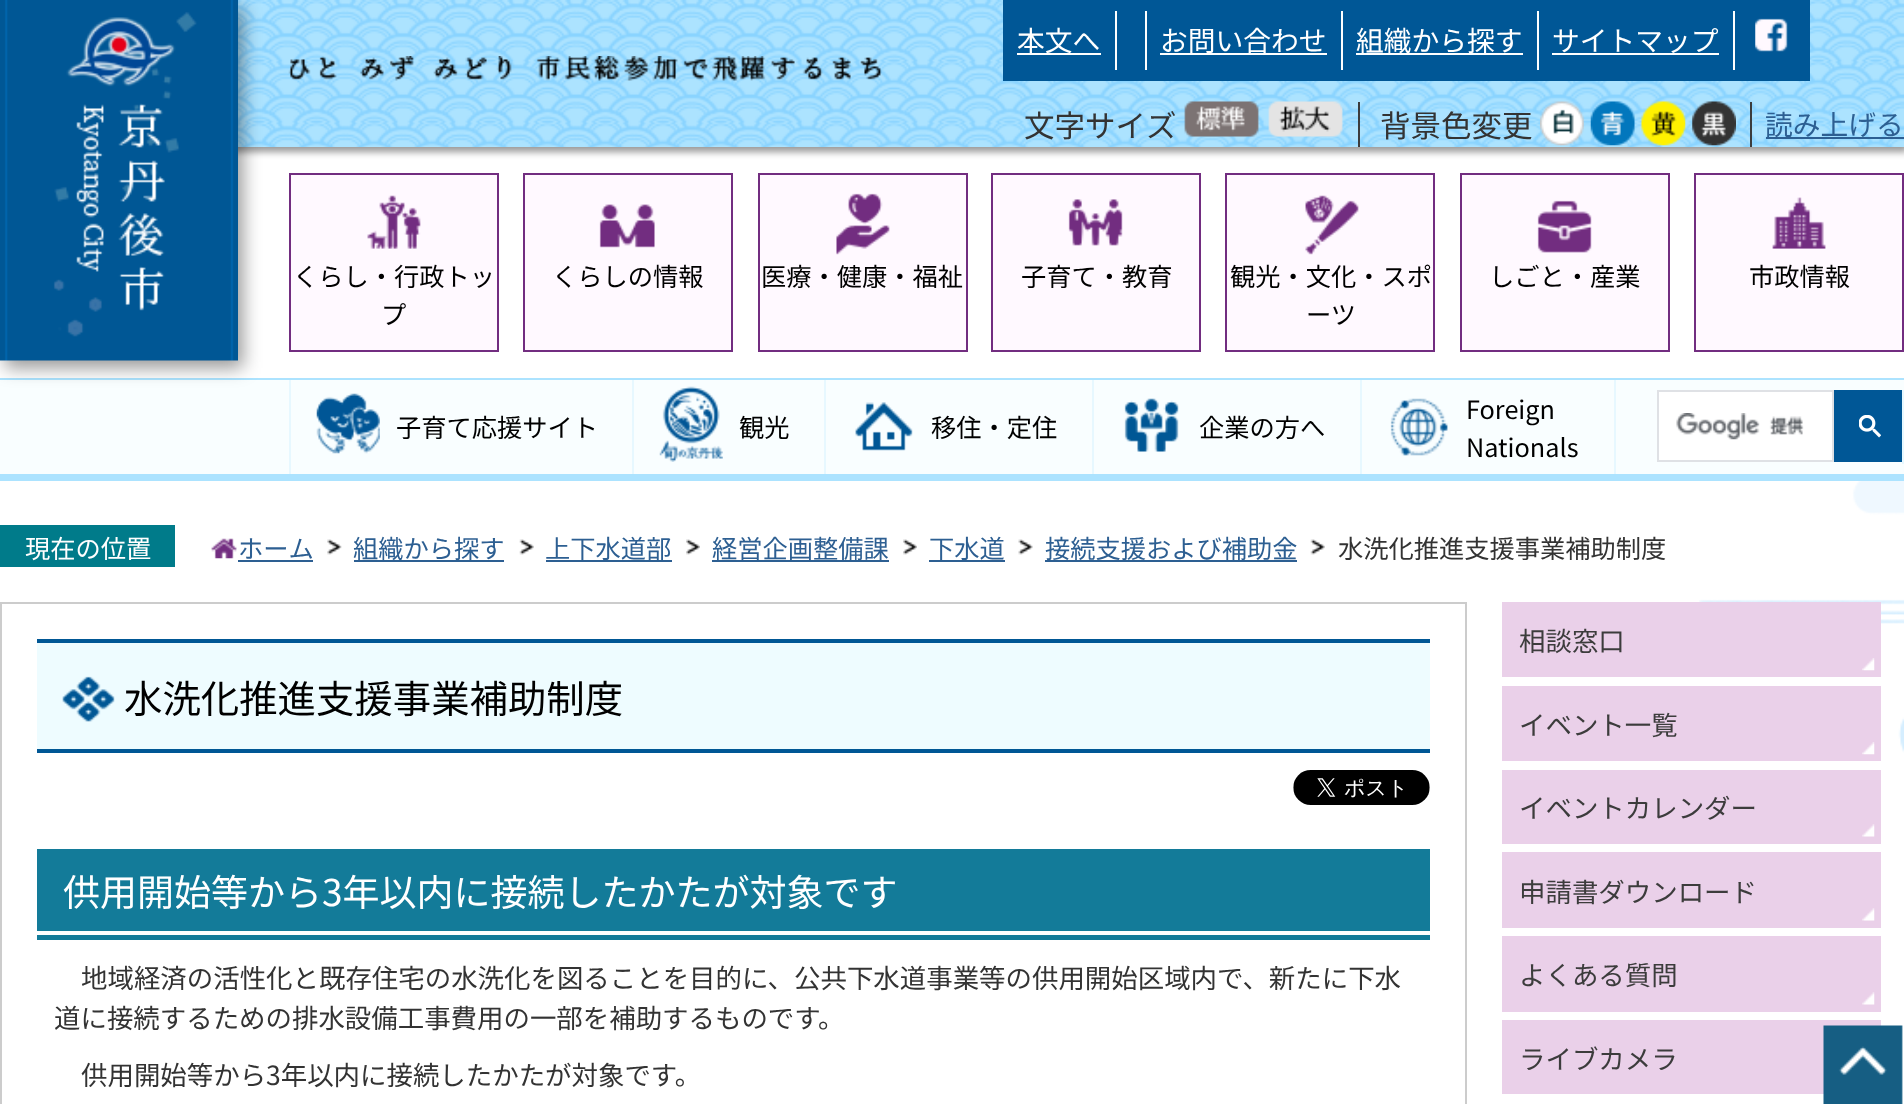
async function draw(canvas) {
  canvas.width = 1904
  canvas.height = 1104
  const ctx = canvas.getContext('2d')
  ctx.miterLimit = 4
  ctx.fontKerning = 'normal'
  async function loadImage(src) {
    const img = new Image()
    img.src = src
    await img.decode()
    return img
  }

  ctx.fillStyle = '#fff'
  ctx.fillRect(0, 0, 1904, 1104)
  ctx.drawImage(await loadImage('image0.png'), 1699, 481, 205, 272)
  ctx.fillStyle = '#00000066'
  ctx.filter = 'blur(3.5px)'
  ctx.beginPath()
  ctx.rect(0, 2, 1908, 150)
  ctx.fill()
  ctx.filter = 'none'
  ctx.drawImage(await loadImage('image1.png'), 238, 0, 1666, 147)
  ctx.fillStyle = '#f9feff'
  ctx.fillRect(0, 380, 1904, 94)
  ctx.fillStyle = '#ace3ff'
  ctx.fillRect(0, 378, 1904, 2)
  ctx.fillStyle = '#00000066'
  ctx.filter = 'blur(9px)'
  ctx.beginPath()
  ctx.rect(5, 7, 238, 361)
  ctx.fill()
  ctx.filter = 'none'
  ctx.drawImage(await loadImage('image2.png'), 0, 0, 238, 361)
  ctx.drawImage(await loadImage('image3.png'), 288, 56, 594, 25)
  ctx.fillStyle = '#005796'
  ctx.fillRect(1003, 0, 807, 81)
  ctx.fillStyle = '#fff'
  ctx.fillRect(1017, 53, 84, 2)
  ctx.font = '27.75px Noto Sans CJK JP'
  ctx.fillText('本文へ', 1017, 51)
  ctx.fillRect(1115, 11, 2, 59)
  ctx.fillRect(1145, 11, 2, 59)
  ctx.fillRect(1160, 53, 167, 2)
  ctx.fillText('お問い合わせ', 1160, 51)
  ctx.fillRect(1341, 11, 2, 59)
  ctx.fillRect(1356, 53, 167, 2)
  ctx.fillText('組織から探す', 1356, 51)
  ctx.fillRect(1537, 11, 2, 59)
  ctx.fillRect(1552, 53, 167, 2)
  ctx.fillText('サイトマップ', 1552, 51)
  ctx.fillRect(1733, 11, 2, 59)
  ctx.drawImage(await loadImage('image4.png'), 1755, 18, 33, 34)
  ctx.font = '30.5px Noto Sans CJK JP'
  ctx.fillStyle = '#333'
  ctx.fillText('文字サイズ', 1024, 137)
  ctx.drawImage(await loadImage('image5.png'), 1184, 101, 75, 36)
  ctx.drawImage(await loadImage('image6.png'), 1268, 101, 75, 36)
  ctx.fillStyle = '#3c3c3c'
  ctx.fillRect(1358, 102, 2, 45)
  ctx.fillStyle = '#333'
  ctx.fillText('背景色変更', 1380, 137)
  ctx.drawImage(await loadImage('image7.png'), 1540, 101, 44, 45)
  ctx.drawImage(await loadImage('image8.png'), 1590, 101, 45, 45)
  ctx.drawImage(await loadImage('image9.png'), 1641, 101, 45, 45)
  ctx.drawImage(await loadImage('image10.png'), 1692, 101, 44, 45)
  ctx.fillStyle = '#3c3c3c'
  ctx.fillRect(1750, 102, 2, 45)
  ctx.fillStyle = '#2d5f92'
  ctx.fillRect(1766, 137, 138, 2)
  ctx.font = '27.75px Noto Sans CJK JP'
  ctx.fillText('読み上げる', 1765, 135)
  ctx.fillStyle = '#fff9ff'
  ctx.beginPath()
  ctx.rect(290, 174, 208, 177)
  ctx.fill()
  ctx.strokeStyle = '#722d80'
  ctx.lineWidth = 2
  ctx.stroke()
  ctx.drawImage(await loadImage('image11.png'), 367, 195, 54, 54)
  ctx.font = '25.25px Noto Sans CJK JP'
  ctx.fillStyle = '#000'
  ctx.fillText('くらし・行政トッ', 293, 286)
  ctx.fillText('プ', 381, 324)
  ctx.fillStyle = '#fff9ff'
  ctx.beginPath()
  ctx.rect(524, 174, 208, 177)
  ctx.fill()
  ctx.stroke()
  ctx.drawImage(await loadImage('image12.png'), 599, 204, 56, 44)
  ctx.fillStyle = '#000'
  ctx.fillText('くらしの情報', 552, 286)
  ctx.fillStyle = '#fff9ff'
  ctx.beginPath()
  ctx.rect(759, 174, 208, 177)
  ctx.fill()
  ctx.stroke()
  ctx.drawImage(await loadImage('image13.png'), 836, 193, 54, 62)
  ctx.fillStyle = '#000'
  ctx.fillText('医療・健康・福祉', 761, 286)
  ctx.fillStyle = '#fff9ff'
  ctx.beginPath()
  ctx.rect(992, 174, 208, 177)
  ctx.fill()
  ctx.stroke()
  ctx.drawImage(await loadImage('image14.png'), 1068, 199, 55, 47)
  ctx.fillStyle = '#000'
  ctx.fillText('子育て・教育', 1021, 286)
  ctx.fillStyle = '#fff9ff'
  ctx.beginPath()
  ctx.rect(1226, 174, 208, 177)
  ctx.fill()
  ctx.stroke()
  ctx.drawImage(await loadImage('image15.png'), 1305, 195, 54, 60)
  ctx.fillStyle = '#000'
  ctx.fillText('観光・文化・スポ', 1230, 286)
  ctx.fillText('ーツ', 1306, 324)
  ctx.fillStyle = '#fff9ff'
  ctx.beginPath()
  ctx.rect(1461, 174, 208, 177)
  ctx.fill()
  ctx.stroke()
  ctx.drawImage(await loadImage('image16.png'), 1537, 200, 55, 53)
  ctx.fillStyle = '#000'
  ctx.fillText('しごと・産業', 1489, 286)
  ctx.fillStyle = '#fff9ff'
  ctx.beginPath()
  ctx.rect(1695, 174, 208, 177)
  ctx.fill()
  ctx.stroke()
  ctx.drawImage(await loadImage('image17.png'), 1772, 197, 54, 52)
  ctx.fillStyle = '#000'
  ctx.fillText('市政情報', 1749, 286)
  ctx.fillStyle = '#ace3ff'
  ctx.fillRect(0, 474, 1904, 7)
  ctx.fillStyle = '#e7f8ff'
  ctx.fillRect(632, 380, 2, 94)
  ctx.fillRect(289, 380, 2, 94)
  ctx.drawImage(await loadImage('image18.png'), 316, 393, 64, 61)
  ctx.fillStyle = '#000'
  ctx.fillText('子育て応援サイト', 396, 437)
  ctx.fillStyle = '#e7f8ff'
  ctx.fillRect(824, 380, 2, 94)
  ctx.drawImage(await loadImage('image19.png'), 659, 386, 64, 76)
  ctx.fillStyle = '#000'
  ctx.fillText('観光', 739, 437)
  ctx.fillStyle = '#e7f8ff'
  ctx.fillRect(1092, 380, 2, 94)
  ctx.drawImage(await loadImage('image20.png'), 855, 402, 58, 49)
  ctx.fillStyle = '#000'
  ctx.fillText('移住・定住', 931, 437)
  ctx.fillStyle = '#e7f8ff'
  ctx.fillRect(1360, 380, 2, 94)
  ctx.drawImage(await loadImage('image21.png'), 1124, 398, 55, 54)
  ctx.fillStyle = '#000'
  ctx.fillText('企業の方へ', 1199, 437)
  ctx.fillStyle = '#e7f8ff'
  ctx.fillRect(1614, 380, 2, 94)
  ctx.drawImage(await loadImage('image22.png'), 1390, 398, 58, 58)
  ctx.fillStyle = '#000'
  ctx.fillText('Foreign', 1466, 419)
  ctx.fillText('Nationals', 1466, 457)
  ctx.fillStyle = '#e7f8ff'
  ctx.fillRect(1902, 390, 2, 74)
  ctx.fillStyle = '#fff'
  ctx.beginPath()
  ctx.rect(1658, 391, 175, 70)
  ctx.fill()
  ctx.strokeStyle = '#dfe1e5'
  ctx.stroke()
  ctx.drawImage(await loadImage('image23.png'), 1676, 413, 128, 27)
  ctx.fillStyle = '#005796'
  ctx.fillRect(1834, 390, 68, 72)
  ctx.drawImage(await loadImage('image24.png'), 1859, 415, 22, 23)
  ctx.fillStyle = '#007b8a'
  ctx.fillRect(0, 525, 175, 42)
  ctx.fillStyle = '#fff'
  ctx.fillText('現在の位置', 25, 558)
  ctx.drawImage(await loadImage('image25.png'), 211, 538, 26, 21)
  ctx.fillStyle = '#2d5f92'
  ctx.fillText('ホーム', 238, 558)
  ctx.fillRect(238, 560, 75, 2)
  ctx.drawImage(await loadImage('image26.png'), 327, 539, 15, 16)
  ctx.fillRect(354, 560, 150, 2)
  ctx.fillText('組織から探す', 353, 558)
  ctx.drawImage(await loadImage('image27.png'), 519, 539, 15, 16)
  ctx.fillRect(546, 560, 126, 2)
  ctx.fillText('上下水道部', 545, 558)
  ctx.drawImage(await loadImage('image28.png'), 686, 539, 14, 16)
  ctx.fillRect(712, 560, 177, 2)
  ctx.fillText('経営企画整備課', 712, 558)
  ctx.drawImage(await loadImage('image29.png'), 903, 539, 14, 16)
  ctx.fillRect(929, 560, 76, 2)
  ctx.fillText('下水道', 929, 558)
  ctx.drawImage(await loadImage('image30.png'), 1018, 539, 15, 16)
  ctx.fillRect(1045, 560, 252, 2)
  ctx.fillText('接続支援および補助金', 1045, 558)
  ctx.drawImage(await loadImage('image27.png'), 1310, 539, 15, 16)
  ctx.fillStyle = '#333'
  ctx.fillText('水洗化推進支援事業補助制度', 1338, 558)
  ctx.strokeStyle = '#ccc'
  ctx.strokeRect(1, 603, 1465, 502)
  ctx.fillStyle = '#eefcff'
  ctx.fillRect(37, 643, 1393, 106)
  ctx.fillStyle = '#005795'
  ctx.fillRect(37, 639, 1393, 4)
  ctx.fillRect(37, 749, 1393, 4)
  ctx.drawImage(await loadImage('image31.png'), 62, 676, 53, 46)
  ctx.font = '38.4px Noto Sans CJK JP'
  ctx.fillStyle = '#000'
  ctx.fillText('水洗化推進支援事業補助制度', 124, 713)
  ctx.drawImage(await loadImage('image32.png'), 1293, 770, 137, 35)
  ctx.fillStyle = '#137b99'
  ctx.fillRect(37, 849, 1393, 91)
  ctx.fillStyle = '#fff'
  ctx.fillRect(37, 931, 1393, 4)
  ctx.font = '37px Noto Sans CJK JP'
  ctx.fillText('供用開始等から3年以内に接続したかたが対象です', 63, 906)
  ctx.font = '26.45px Noto Sans CJK JP'
  ctx.fillStyle = '#333'
  ctx.fillText('地域経済の活性化と既存住宅の水洗化を図ることを目的に、公共下水道事業等の供用開始区域内で、新たに下水', 81, 988)
  ctx.fillText('道に接続するための排水設備工事費用の一部を補助するものです。', 54, 1028)
  ctx.fillText('供用開始等から3年以内に接続したかたが対象です。', 81, 1085)
  ctx.fillStyle = '#ead0e9'
  ctx.fillRect(1502, 602, 379, 75)
  ctx.drawImage(await loadImage('image33.png'), 1862, 658, 13, 13)
  ctx.fillStyle = '#3c3c3c'
  ctx.fillText('相談窓口', 1519, 651)
  ctx.fillStyle = '#ead0e9'
  ctx.fillRect(1502, 686, 379, 75)
  ctx.drawImage(await loadImage('image33.png'), 1862, 742, 13, 13)
  ctx.fillStyle = '#3c3c3c'
  ctx.fillText('イベント一覧', 1519, 735)
  ctx.fillStyle = '#ead0e9'
  ctx.fillRect(1502, 770, 379, 74)
  ctx.drawImage(await loadImage('image34.png'), 1862, 824, 13, 13)
  ctx.fillStyle = '#3c3c3c'
  ctx.fillText('イベントカレンダー', 1519, 818)
  ctx.fillStyle = '#ead0e9'
  ctx.fillRect(1502, 852, 379, 76)
  ctx.drawImage(await loadImage('image34.png'), 1862, 908, 13, 13)
  ctx.fillStyle = '#3c3c3c'
  ctx.fillText('申請書ダウンロード', 1519, 902)
  ctx.fillStyle = '#ead0e9'
  ctx.fillRect(1502, 936, 379, 76)
  ctx.drawImage(await loadImage('image34.png'), 1862, 992, 13, 13)
  ctx.fillStyle = '#3c3c3c'
  ctx.fillText('よくある質問', 1519, 985)
  ctx.fillStyle = '#ead0e9'
  ctx.fillRect(1502, 1020, 379, 74)
  ctx.fillStyle = '#3c3c3c'
  ctx.fillText('ライブカメラ', 1519, 1069)
  ctx.drawImage(await loadImage('image35.png'), 1823, 1025, 80, 79)
}

draw(document.querySelector('canvas'))
